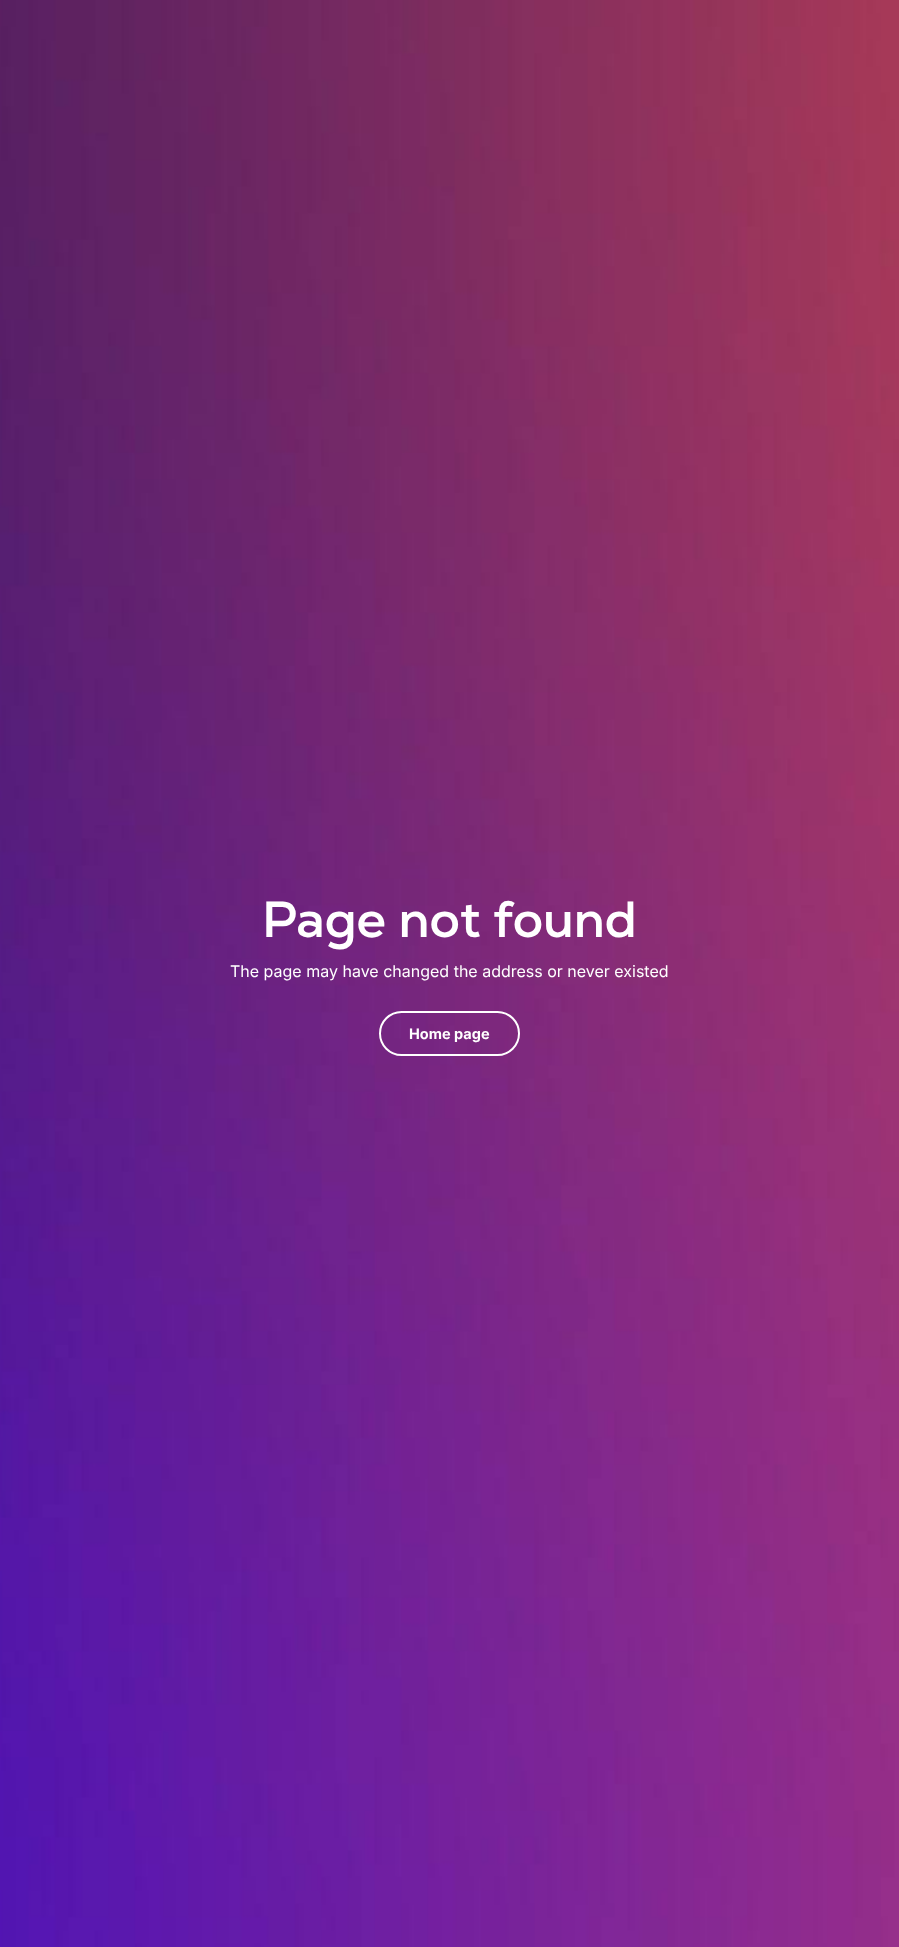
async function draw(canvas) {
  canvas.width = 899
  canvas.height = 1947
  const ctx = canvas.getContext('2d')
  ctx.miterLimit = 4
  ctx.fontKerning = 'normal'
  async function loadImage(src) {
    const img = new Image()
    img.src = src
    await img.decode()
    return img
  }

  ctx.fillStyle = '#fff'
  ctx.fillRect(0, 0, 899, 1947)
  ctx.drawImage(await loadImage('image0.png'), 0, 0, 899, 1947)
  ctx.font = 'bold 50.75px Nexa'
  ctx.fillText('Page not found', 262, 937)
  ctx.font = '16px Inter'
  ctx.fillText('The page may have changed the address or never existed', 230, 977)
  ctx.beginPath()
  ctx.roundRect(380, 1012, 139, 43, 21.5)
  ctx.strokeStyle = '#fff'
  ctx.lineWidth = 2
  ctx.stroke()
  ctx.font = 'bold 14.5px Inter'
  ctx.fillText('Home page', 409, 1039)
}

draw(document.querySelector('canvas'))
